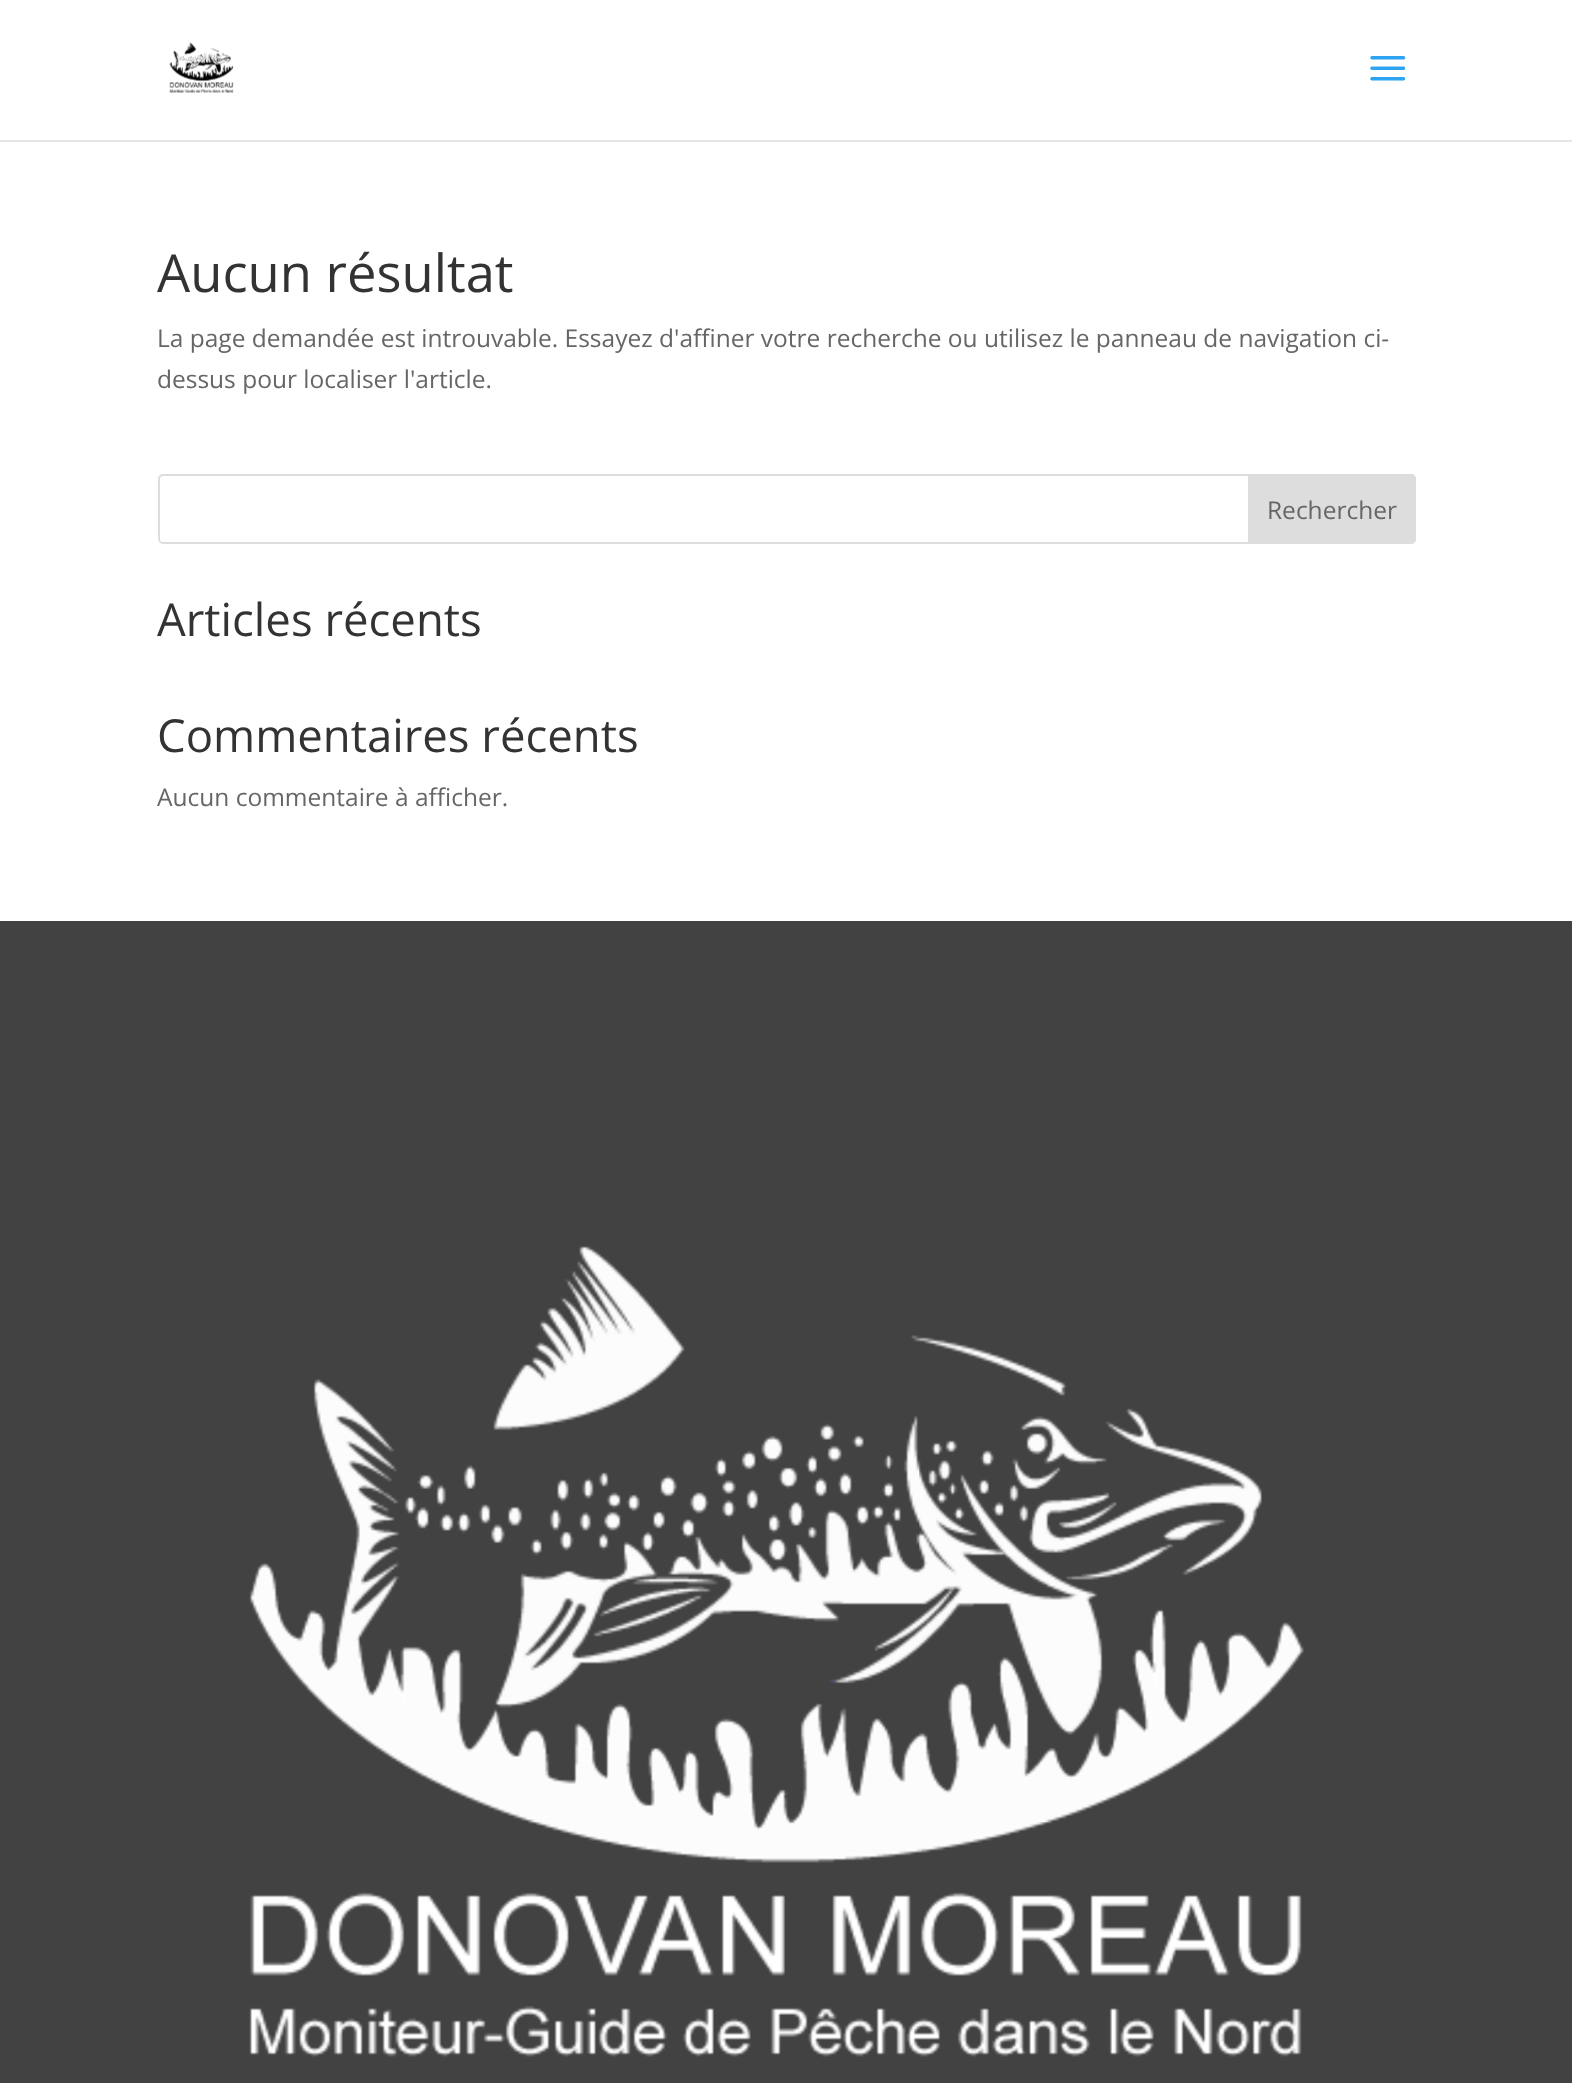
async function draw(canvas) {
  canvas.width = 1572
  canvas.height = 2083
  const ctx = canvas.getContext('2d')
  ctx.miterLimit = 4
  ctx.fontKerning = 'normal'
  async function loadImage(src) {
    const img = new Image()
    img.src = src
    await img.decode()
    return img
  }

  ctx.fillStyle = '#fff'
  ctx.fillRect(0, 0, 1572, 2083)
  ctx.fillStyle = '#e6e6e6'
  ctx.fillRect(0, 140, 1572, 2)
  ctx.drawImage(await loadImage('image0.png'), 169, 42, 65, 51)
  ctx.drawImage(await loadImage('image1.png'), 1370, 56, 36, 25)
  ctx.font = '52.5px Open Sans'
  ctx.fillStyle = '#333'
  ctx.fillText('Aucun résultat', 157, 292)
  ctx.font = '24.5px Open Sans'
  ctx.fillStyle = '#666'
  ctx.fillText('La page demandée est introuvable. Essayez d\'affiner votre recherche ou utilisez le panneau de navigation ci-', 157, 347)
  ctx.fillText('dessus pour localiser l\'article.', 157, 388)
  ctx.beginPath()
  ctx.roundRect(159, 475, 1256, 68, 4)
  ctx.strokeStyle = '#ddd'
  ctx.lineWidth = 2
  ctx.stroke()
  ctx.fillStyle = '#ddd'
  ctx.beginPath()
  ctx.roundRect(1249, 475, 166, 68, [0, 4, 4, 0])
  ctx.fill()
  ctx.stroke()
  ctx.fillStyle = '#666'
  ctx.fillText('Rechercher', 1267, 519)
  ctx.font = '45.5px Open Sans'
  ctx.fillStyle = '#333'
  ctx.fillText('Articles récents', 157, 636)
  ctx.fillText('Commentaires récents', 157, 752)
  ctx.font = '24.5px Open Sans'
  ctx.fillStyle = '#666'
  ctx.fillText('Aucun commentaire à afficher.', 157, 806)
  ctx.fillStyle = '#424242'
  ctx.fillRect(0, 921, 1572, 1162)
  ctx.drawImage(await loadImage('image2.png'), 249, 1246, 1055, 811)
}

draw(document.querySelector('canvas'))
